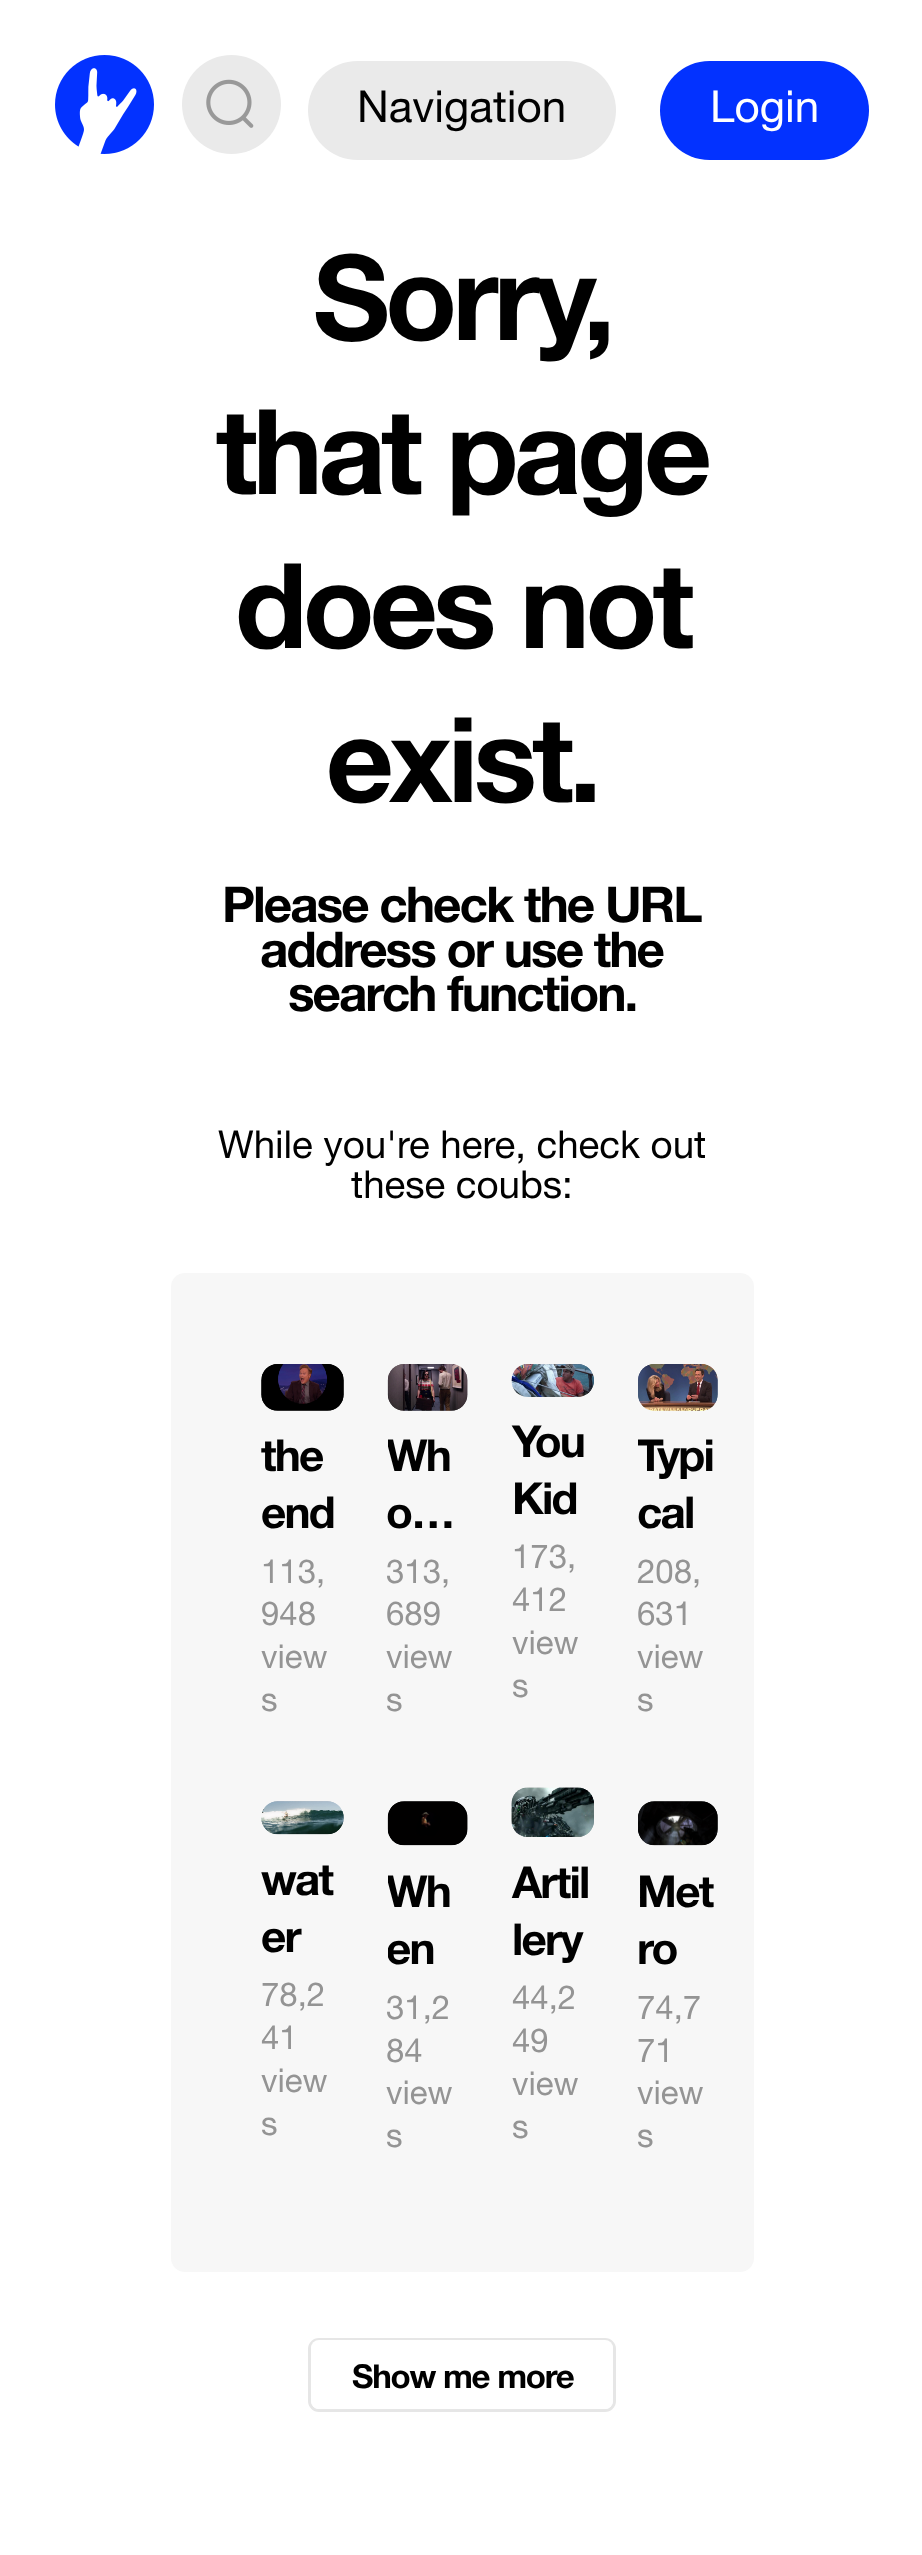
async function draw(canvas) {
  canvas.width = 922
  canvas.height = 2555
  const ctx = canvas.getContext('2d')
  ctx.miterLimit = 4
  ctx.fontKerning = 'normal'
  async function loadImage(src) {
    const img = new Image()
    img.src = src
    await img.decode()
    return img
  }

  ctx.fillStyle = '#fff'
  ctx.fillRect(0, 0, 922, 2555)
  ctx.drawImage(await loadImage('image0.png'), 55, 55, 99, 99)
  ctx.fillStyle = '#eaeaea'
  ctx.beginPath()
  ctx.arc(231.5, 104.5, 49.5, 0, 2 * Math.PI)
  ctx.fill()
  ctx.drawImage(await loadImage('image1.png'), 206, 79, 48, 49)
  ctx.beginPath()
  ctx.roundRect(308, 61, 308, 99, 49.5)
  ctx.fill()
  ctx.font = '44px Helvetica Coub'
  ctx.fillStyle = '#000'
  ctx.fillText('Navigation', 357, 122)
  ctx.fillStyle = '#0332ff'
  ctx.beginPath()
  ctx.roundRect(660, 61, 209, 99, 49.5)
  ctx.fill()
  ctx.fillStyle = '#fff'
  ctx.fillText('Login', 710, 122)
  ctx.letterSpacing = '-4.75px'
  ctx.font = 'bold 118.25px Helvetica Coub'
  ctx.fillStyle = '#000'
  ctx.fillText('Sorry,', 313, 340)
  ctx.fillText('that page', 216, 494)
  ctx.fillText('does not', 235, 648)
  ctx.fillText('exist.', 326, 802)
  ctx.letterSpacing = '-2px'
  ctx.font = 'bold 49.5px Helvetica Coub'
  ctx.fillText('Please check the URL', 222, 922)
  ctx.fillText('address or use the', 260, 967)
  ctx.fillText('search function.', 288, 1011)
  ctx.letterSpacing = '0px'
  ctx.font = '38.5px Helvetica Coub'
  ctx.fillText('While you\'re here, check out', 218, 1158)
  ctx.fillText('these coubs:', 351, 1198)
  ctx.fillStyle = '#f7f7f7'
  ctx.beginPath()
  ctx.roundRect(171, 1273, 583, 999, 14)
  ctx.fill()
  ctx.drawImage(await loadImage('image2.png'), 261, 1364, 83, 47)
  ctx.drawImage(await loadImage('image3.png'), 261, 1364, 83, 47)
  ctx.letterSpacing = '-1.75px'
  ctx.font = 'bold 44px Helvetica Coub'
  ctx.fillStyle = '#000'
  ctx.fillText('the', 261, 1471)
  ctx.fillText('end', 261, 1528)
  ctx.letterSpacing = '0px'
  ctx.font = '33px Helvetica Coub'
  ctx.fillStyle = '#949494'
  ctx.fillText('113,', 261, 1583)
  ctx.fillText('948', 261, 1625)
  ctx.fillText('view', 261, 1668)
  ctx.fillText('s', 261, 1711)
  ctx.drawImage(await loadImage('image4.png'), 387, 1364, 81, 47)
  ctx.drawImage(await loadImage('image5.png'), 387, 1364, 81, 47)
  ctx.save()
  ctx.beginPath()
  ctx.rect(388, 1430, 80, 113)
  ctx.clip()
  ctx.letterSpacing = '-1.75px'
  ctx.font = 'bold 44px Helvetica Coub'
  ctx.fillStyle = '#000'
  ctx.fillText('Wh', 386, 1471)
  ctx.restore()
  ctx.letterSpacing = '-1.75px'
  ctx.font = 'bold 44px Helvetica Coub'
  ctx.fillStyle = '#000'
  ctx.fillText('o…', 386, 1528)
  ctx.letterSpacing = '0px'
  ctx.font = '33px Helvetica Coub'
  ctx.fillStyle = '#949494'
  ctx.fillText('313,', 386, 1583)
  ctx.fillText('689', 386, 1625)
  ctx.fillText('view', 386, 1668)
  ctx.fillText('s', 386, 1711)
  ctx.drawImage(await loadImage('image6.png'), 511, 1364, 83, 33)
  ctx.drawImage(await loadImage('image7.png'), 511, 1364, 83, 31)
  ctx.letterSpacing = '-1.75px'
  ctx.font = 'bold 44px Helvetica Coub'
  ctx.fillStyle = '#000'
  ctx.fillText('You', 512, 1457)
  ctx.fillText('Kid', 512, 1514)
  ctx.letterSpacing = '0px'
  ctx.font = '33px Helvetica Coub'
  ctx.fillStyle = '#949494'
  ctx.fillText('173,', 512, 1568)
  ctx.fillText('412', 512, 1611)
  ctx.fillText('view', 512, 1654)
  ctx.fillText('s', 512, 1697)
  ctx.drawImage(await loadImage('image8.png'), 638, 1364, 80, 47)
  ctx.drawImage(await loadImage('image9.png'), 638, 1364, 80, 47)
  ctx.save()
  ctx.beginPath()
  ctx.rect(638, 1430, 80, 113)
  ctx.clip()
  ctx.letterSpacing = '-1.75px'
  ctx.font = 'bold 44px Helvetica Coub'
  ctx.fillStyle = '#000'
  ctx.fillText('Typi', 637, 1471)
  ctx.restore()
  ctx.letterSpacing = '-1.75px'
  ctx.font = 'bold 44px Helvetica Coub'
  ctx.fillStyle = '#000'
  ctx.fillText('cal', 637, 1528)
  ctx.letterSpacing = '0px'
  ctx.font = '33px Helvetica Coub'
  ctx.fillStyle = '#949494'
  ctx.fillText('208,', 637, 1583)
  ctx.fillText('631', 637, 1625)
  ctx.fillText('view', 637, 1668)
  ctx.fillText('s', 637, 1711)
  ctx.drawImage(await loadImage('image10.png'), 261, 1801, 83, 34)
  ctx.drawImage(await loadImage('image11.png'), 261, 1801, 83, 34)
  ctx.letterSpacing = '-1.75px'
  ctx.font = 'bold 44px Helvetica Coub'
  ctx.fillStyle = '#000'
  ctx.fillText('wat', 261, 1895)
  ctx.fillText('er', 261, 1952)
  ctx.letterSpacing = '0px'
  ctx.font = '33px Helvetica Coub'
  ctx.fillStyle = '#949494'
  ctx.fillText('78,2', 261, 2006)
  ctx.fillText('41', 261, 2049)
  ctx.fillText('view', 261, 2092)
  ctx.fillText('s', 261, 2135)
  ctx.drawImage(await loadImage('image12.png'), 387, 1801, 81, 45)
  ctx.drawImage(await loadImage('image13.png'), 387, 1801, 81, 45)
  ctx.save()
  ctx.beginPath()
  ctx.rect(388, 1865, 80, 115)
  ctx.clip()
  ctx.letterSpacing = '-1.75px'
  ctx.font = 'bold 44px Helvetica Coub'
  ctx.fillStyle = '#000'
  ctx.fillText('Wh', 386, 1907)
  ctx.fillText('en', 386, 1964)
  ctx.restore()
  ctx.fillText('31,2', 386, 2019)
  ctx.fillText('84', 386, 2062)
  ctx.fillText('view', 386, 2104)
  ctx.fillText('s', 386, 2147)
  ctx.drawImage(await loadImage('image14.png'), 511, 1787, 83, 50)
  ctx.drawImage(await loadImage('image15.png'), 511, 1787, 83, 50)
  ctx.letterSpacing = '-1.75px'
  ctx.font = 'bold 44px Helvetica Coub'
  ctx.fillStyle = '#000'
  ctx.fillText('Artil', 512, 1898)
  ctx.fillText('lery', 512, 1955)
  ctx.letterSpacing = '0px'
  ctx.font = '33px Helvetica Coub'
  ctx.fillStyle = '#949494'
  ctx.fillText('44,2', 512, 2009)
  ctx.fillText('49', 512, 2052)
  ctx.fillText('view', 512, 2095)
  ctx.fillText('s', 512, 2138)
  ctx.drawImage(await loadImage('image16.png'), 638, 1801, 80, 45)
  ctx.drawImage(await loadImage('image17.png'), 638, 1801, 80, 45)
  ctx.letterSpacing = '-1.75px'
  ctx.font = 'bold 44px Helvetica Coub'
  ctx.fillStyle = '#000'
  ctx.fillText('Met', 637, 1907)
  ctx.fillText('ro', 637, 1964)
  ctx.letterSpacing = '0px'
  ctx.font = '33px Helvetica Coub'
  ctx.fillStyle = '#949494'
  ctx.fillText('74,7', 637, 2019)
  ctx.fillText('71', 637, 2062)
  ctx.fillText('view', 637, 2104)
  ctx.fillText('s', 637, 2147)
  ctx.beginPath()
  ctx.roundRect(309.5, 2339.5, 305, 71, 9.5)
  ctx.strokeStyle = '#e6e6e6'
  ctx.lineWidth = 3
  ctx.stroke()
  ctx.fillStyle = '#fff'
  ctx.beginPath()
  ctx.roundRect(311, 2340, 302, 69, 8)
  ctx.fill()
  ctx.letterSpacing = '-1.25px'
  ctx.font = 'bold 33px Helvetica Coub'
  ctx.fillStyle = '#000'
  ctx.fillText('Show me more', 352, 2388)
}

draw(document.querySelector('canvas'))
